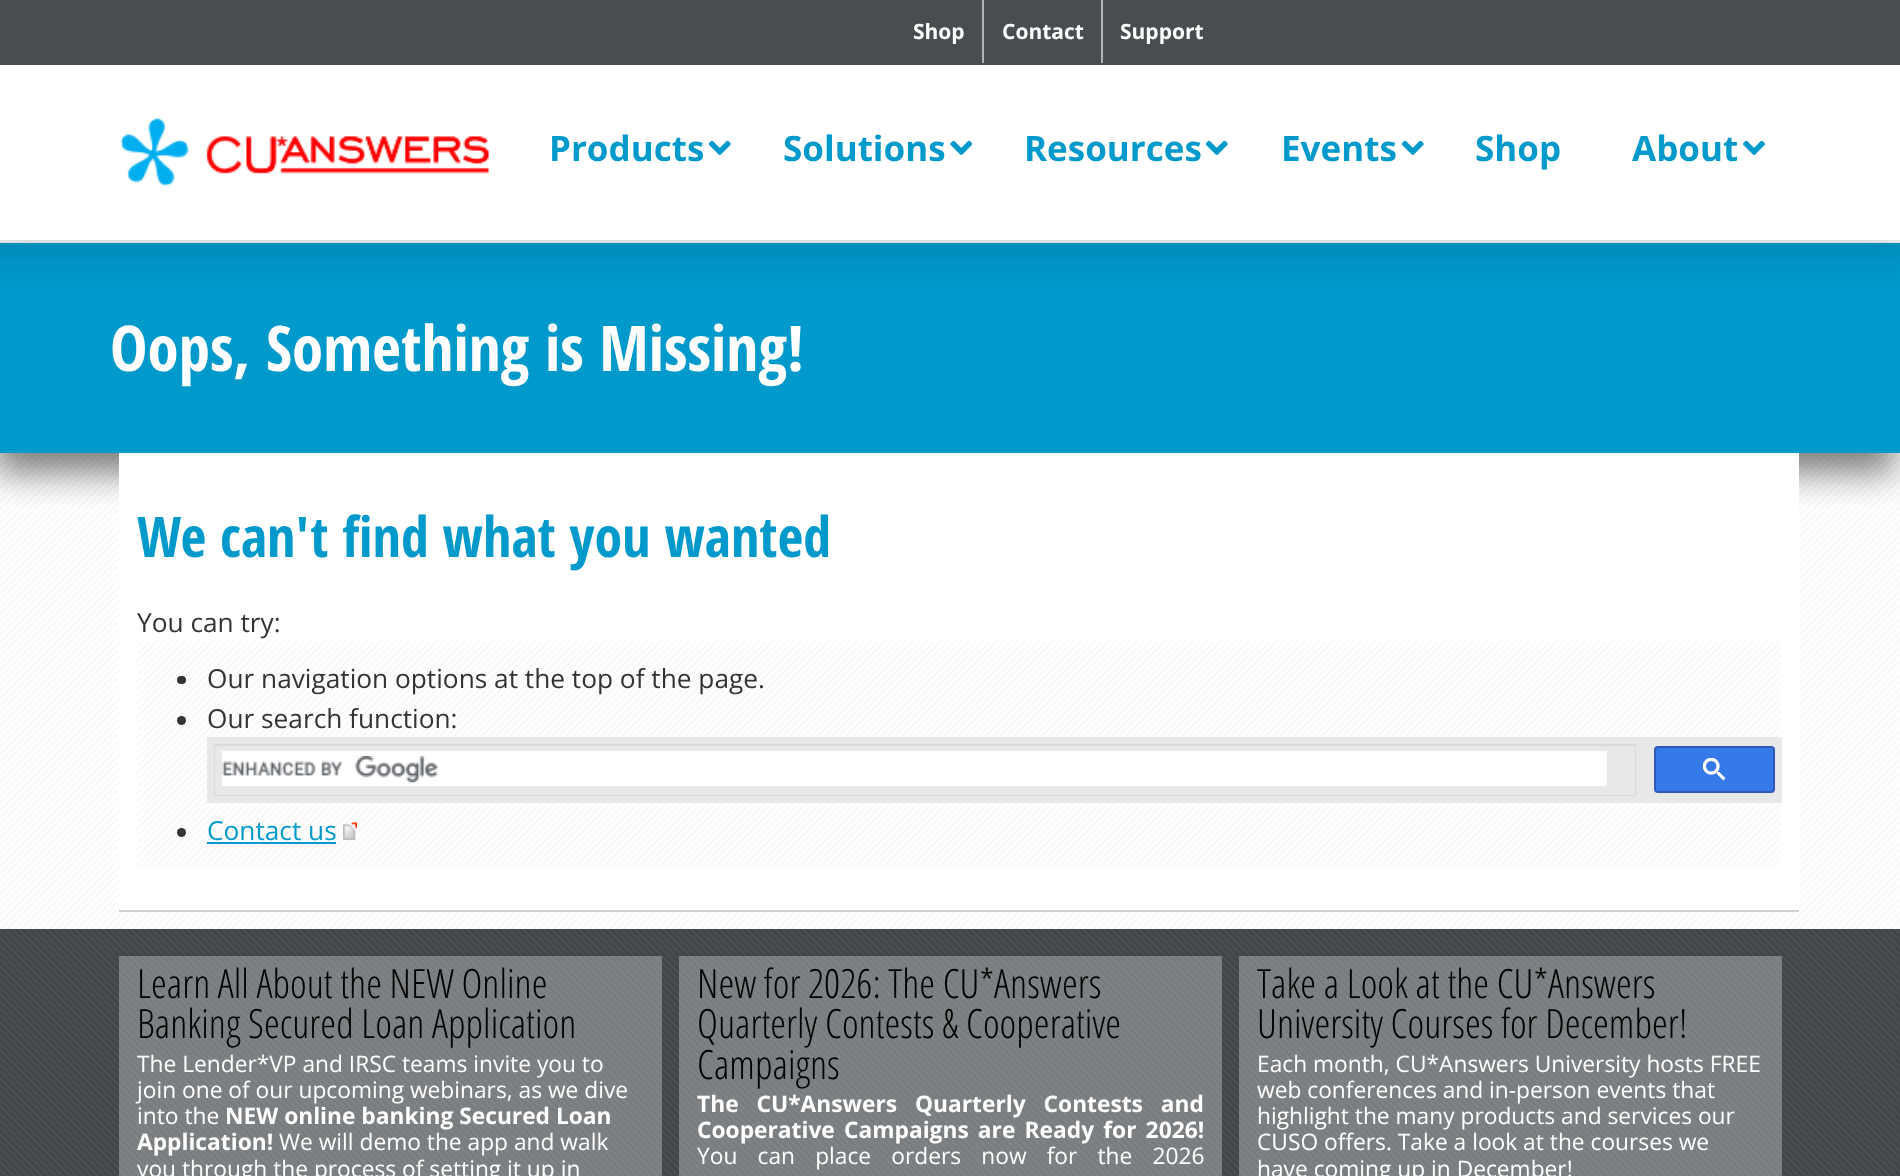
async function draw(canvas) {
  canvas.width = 1900
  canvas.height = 1176
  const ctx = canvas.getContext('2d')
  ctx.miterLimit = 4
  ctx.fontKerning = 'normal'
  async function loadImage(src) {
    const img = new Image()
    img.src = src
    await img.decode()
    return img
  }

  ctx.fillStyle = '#fff'
  ctx.fillRect(0, 0, 1900, 1176)
  ctx.fillStyle = '#00000080'
  ctx.filter = 'blur(17.5px)'
  ctx.beginPath()
  ctx.rect(-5, 263, 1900, 210)
  ctx.fill()
  ctx.filter = 'none'
  ctx.fillStyle = '#09c'
  ctx.fillRect(0, 243, 1900, 210)
  ctx.fillStyle = '#0000001a'
  ctx.filter = 'blur(17.5px)'
  ctx.beginPath()
  ctx.rect(-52, -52, 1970, 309)
  ctx.fill()
  ctx.filter = 'none'
  ctx.fillStyle = '#fff'
  ctx.fillRect(0, 65, 1900, 175)
  ctx.fillStyle = '#484d50'
  ctx.fillRect(0, 0, 1900, 65)
  ctx.fillStyle = '#b3b3b3'
  ctx.fillRect(982, 0, 2, 63)
  ctx.font = 'bold 21px Open Sans'
  ctx.fillStyle = '#fff'
  ctx.fillText('Shop', 913, 39)
  ctx.fillStyle = '#b3b3b3'
  ctx.fillRect(1101, 0, 2, 63)
  ctx.fillStyle = '#fff'
  ctx.fillText('Contact', 1002, 39)
  ctx.fillText('Support', 1120, 39)
  ctx.drawImage(await loadImage('image0.png'), 120, 118, 369, 68)
  ctx.font = 'bold 35px Open Sans'
  ctx.fillStyle = '#09c'
  ctx.fillText('Products', 549, 161)
  ctx.drawImage(await loadImage('image1.png'), 708, 140, 23, 15)
  ctx.fillText('Solutions', 783, 161)
  ctx.drawImage(await loadImage('image2.png'), 950, 140, 23, 15)
  ctx.fillText('Resources', 1024, 161)
  ctx.drawImage(await loadImage('image1.png'), 1205, 140, 23, 15)
  ctx.fillText('Events', 1281, 161)
  ctx.drawImage(await loadImage('image1.png'), 1401, 140, 23, 15)
  ctx.fillText('Shop', 1475, 161)
  ctx.fillText('About', 1632, 161)
  ctx.drawImage(await loadImage('image3.png'), 1743, 140, 22, 15)
  ctx.font = 'bold 63px Open Sans Condensed'
  ctx.fillStyle = '#fff'
  ctx.fillText('Oops, Something is Missing!', 110, 371)
  ctx.drawImage(await loadImage('image4.png'), 0, 454, 1900, 475)
  ctx.fillRect(119, 453, 1680, 457)
  ctx.fillStyle = '#d1d1d1'
  ctx.fillRect(119, 910, 1680, 2)
  ctx.font = 'bold 56px Open Sans Condensed'
  ctx.fillStyle = '#09c'
  ctx.fillText('We can\'t find what you wanted', 137, 557)
  ctx.font = '26.25px Open Sans'
  ctx.fillStyle = '#333'
  ctx.fillText('You can try:', 137, 632)
  ctx.drawImage(await loadImage('image5.png'), 137, 641, 1644, 225)
  ctx.beginPath()
  ctx.roundRect(177, 676, 9, 8, 4)
  ctx.fill()
  ctx.fillText('Our navigation options at the top of the page.', 207, 688)
  ctx.beginPath()
  ctx.arc(181.5, 720.5, 4.5, 0, 2 * Math.PI)
  ctx.fill()
  ctx.fillText('Our search function:', 207, 728)
  ctx.fillStyle = '#e8e8e8'
  ctx.fillRect(207, 737, 1575, 66)
  ctx.strokeStyle = '#d9d9d9'
  ctx.lineWidth = 2
  ctx.strokeRect(215, 745, 1420, 50)
  ctx.fillRect(215, 746, 1420, 49)
  ctx.fillStyle = '#fff'
  ctx.fillRect(222, 751, 1385, 35)
  ctx.drawImage(await loadImage('image6.png'), 222, 756, 216, 27)
  ctx.fillStyle = '#357ae8'
  ctx.beginPath()
  ctx.roundRect(1655, 747, 119, 45, 3)
  ctx.fill()
  ctx.strokeStyle = '#2f5bb7'
  ctx.stroke()
  ctx.drawImage(await loadImage('image7.png'), 1703, 758, 23, 23)
  ctx.fillStyle = '#333'
  ctx.beginPath()
  ctx.arc(181.5, 832.5, 4.5, 0, 2 * Math.PI)
  ctx.fill()
  ctx.fillStyle = '#09c'
  ctx.fillText('Contact us', 207, 840)
  ctx.fillRect(207, 842, 129, 2)
  ctx.drawImage(await loadImage('image8.png'), 343, 822, 14, 18)
  ctx.fillStyle = '#484d50'
  ctx.fillRect(0, 929, 1900, 247)
  ctx.drawImage(await loadImage('image9.png'), 0, 929, 1900, 247)
  ctx.fillStyle = '#ffffff4d'
  ctx.fillRect(119, 956, 543, 220)
  ctx.font = '300 40.25px Open Sans Condensed'
  ctx.fillStyle = '#000'
  ctx.fillText('Learn All About the NEW Online', 137, 998)
  ctx.fillText('Banking Secured Loan Application', 137, 1038)
  ctx.font = '22.75px Open Sans'
  ctx.fillStyle = '#fff'
  ctx.fillText('The Lender*VP and IRSC teams invite you to', 137, 1072)
  ctx.fillText('join one of our upcoming webinars, as we dive', 137, 1098)
  ctx.fillText('into the', 137, 1124)
  ctx.font = 'bold 22.75px Open Sans'
  ctx.fillText('NEW online banking Secured Loan', 225, 1124)
  ctx.fillText('Application!', 137, 1150)
  ctx.font = '22.75px Open Sans'
  ctx.fillText('We will demo the app and walk', 279, 1150)
  ctx.fillText('you through the process of setting it up in', 137, 1177)
  ctx.fillStyle = '#ffffff4d'
  ctx.fillRect(679, 956, 543, 220)
  ctx.font = '300 40.25px Open Sans Condensed'
  ctx.fillStyle = '#000'
  ctx.fillText('New for 2026: The CU*Answers', 697, 998)
  ctx.fillText('Quarterly Contests & Cooperative', 697, 1038)
  ctx.fillText('Campaigns', 697, 1079)
  ctx.wordSpacing = '12px'
  ctx.font = 'bold 22.75px Open Sans'
  ctx.fillStyle = '#fff'
  ctx.fillText('The CU*Answers Quarterly Contests and', 697, 1112)
  ctx.wordSpacing = '3.25px'
  ctx.fillText('Cooperative Campaigns are Ready for 2026!', 697, 1138)
  ctx.wordSpacing = '14.25px'
  ctx.font = '22.75px Open Sans'
  ctx.fillText('You can place orders now for the 2026', 697, 1164)
  ctx.fillStyle = '#ffffff4d'
  ctx.fillRect(1239, 956, 543, 220)
  ctx.wordSpacing = '0px'
  ctx.font = '300 40.25px Open Sans Condensed'
  ctx.fillStyle = '#000'
  ctx.fillText('Take a Look at the CU*Answers', 1257, 998)
  ctx.fillText('University Courses for December!', 1257, 1038)
  ctx.font = '22.75px Open Sans'
  ctx.fillStyle = '#fff'
  ctx.fillText('Each month, CU*Answers University hosts FREE', 1257, 1072)
  ctx.fillText('web conferences and in-person events that', 1257, 1098)
  ctx.fillText('highlight the many products and services our', 1257, 1124)
  ctx.fillText('CUSO offers. Take a look at the courses we', 1257, 1150)
  ctx.fillText('have coming up in December!', 1257, 1177)
}

draw(document.querySelector('canvas'))
